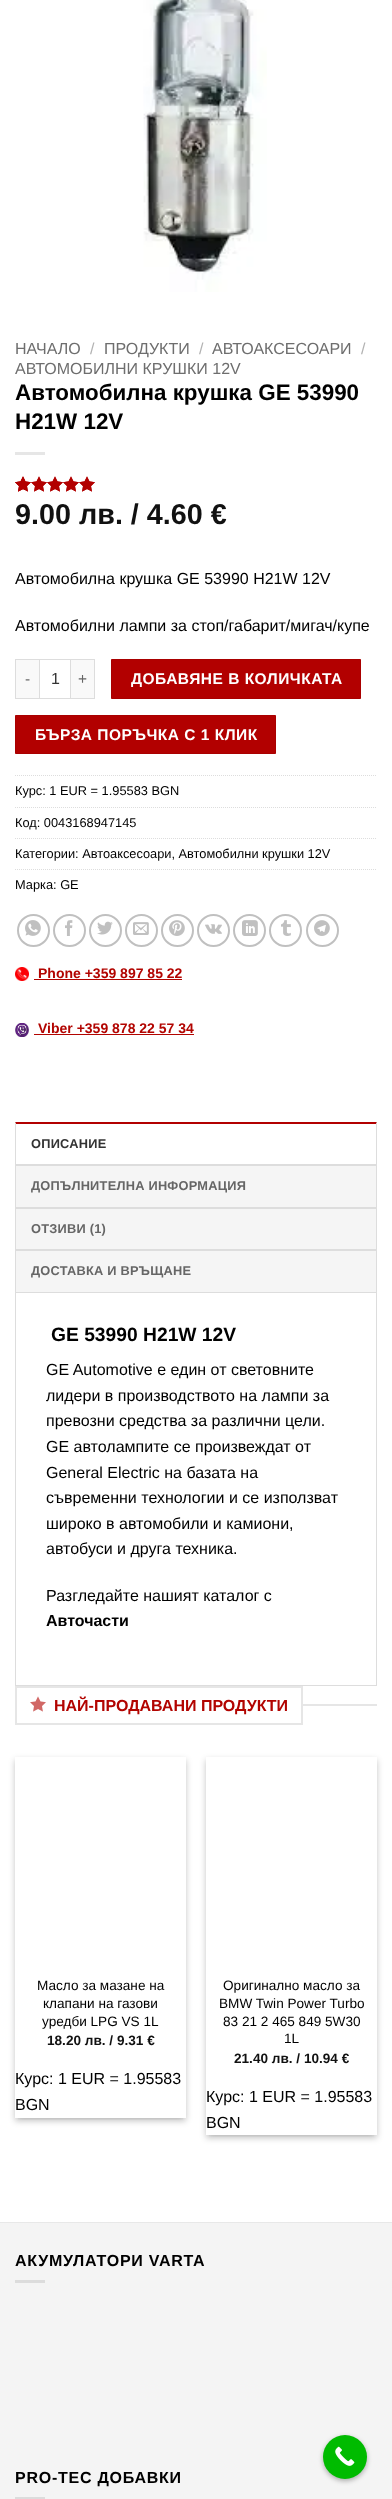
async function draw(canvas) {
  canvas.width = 392
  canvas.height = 2499
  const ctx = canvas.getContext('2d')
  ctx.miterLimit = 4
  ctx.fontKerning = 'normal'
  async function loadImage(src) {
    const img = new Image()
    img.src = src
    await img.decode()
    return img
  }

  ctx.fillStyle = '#fff'
  ctx.fillRect(0, 0, 392, 2499)
  ctx.drawImage(await loadImage('image0.png'), 143, 0, 124, 292)
  ctx.font = '16px Liberation Sans'
  ctx.fillStyle = '#6e6e6e'
  ctx.fillText('НАЧАЛО', 15, 354)
  ctx.fillStyle = '#b2b2b2'
  ctx.fillText('/', 90, 354)
  ctx.fillStyle = '#6e6e6e'
  ctx.fillText('ПРОДУКТИ', 104, 354)
  ctx.fillStyle = '#b2b2b2'
  ctx.fillText('/', 199, 354)
  ctx.fillStyle = '#6e6e6e'
  ctx.fillText('АВТОАКСЕСОАРИ', 212, 354)
  ctx.fillStyle = '#b2b2b2'
  ctx.fillText('/', 361, 354)
  ctx.fillStyle = '#6e6e6e'
  ctx.fillText('АВТОМОБИЛНИ КРУШКИ 12V', 15, 374)
  ctx.font = 'bold 22.4px Liberation Sans'
  ctx.fillStyle = '#000'
  ctx.fillText('Автомобилна крушка GE 53990', 15, 400)
  ctx.fillText('H21W 12V', 15, 429)
  ctx.fillStyle = '#e6e6e6'
  ctx.fillRect(15, 452, 30, 3)
  ctx.drawImage(await loadImage('image1.png'), 15, 476, 80, 16)
  ctx.drawImage(await loadImage('image2.png'), 15, 476, 80, 16)
  ctx.drawImage(await loadImage('image3.png'), 15, 476, 10, 16)
  ctx.font = 'bold 28.75px Liberation Sans'
  ctx.fillStyle = '#111'
  ctx.fillText('9.00 лв. / 4.60 €', 15, 524)
  ctx.font = '16px Liberation Sans'
  ctx.fillStyle = '#000'
  ctx.fillText('Автомобилна крушка GE 53990 H21W 12V', 15, 584)
  ctx.fillText('Автомобилни лампи за стоп/габарит/мигач/купе', 15, 631)
  ctx.fillStyle = '#f9f9f9'
  ctx.fillRect(16, 660, 23, 38)
  ctx.fillStyle = '#ddd'
  ctx.fillRect(15, 659, 24, 1)
  ctx.fillRect(15, 698, 24, 1)
  ctx.fillRect(15, 659, 1, 40)
  ctx.letterSpacing = '0.5px'
  ctx.font = '15.5px Liberation Sans'
  ctx.fillStyle = '#666'
  ctx.fillText('-', 25, 684)
  ctx.strokeStyle = '#ddd'
  ctx.strokeRect(39.5, 659.5, 31, 39)
  ctx.letterSpacing = '0px'
  ctx.font = '16px Liberation Sans'
  ctx.fillStyle = '#333'
  ctx.fillText('1', 51, 684)
  ctx.fillStyle = '#f9f9f9'
  ctx.fillRect(71, 660, 23, 38)
  ctx.fillStyle = '#ddd'
  ctx.fillRect(71, 659, 24, 1)
  ctx.fillRect(94, 659, 1, 40)
  ctx.fillRect(71, 698, 24, 1)
  ctx.letterSpacing = '0.5px'
  ctx.font = '15.5px Liberation Sans'
  ctx.fillStyle = '#666'
  ctx.fillText('+', 78, 684)
  ctx.fillStyle = '#b20000'
  ctx.beginPath()
  ctx.rect(111.5, 659.5, 249, 39)
  ctx.fill()
  ctx.strokeStyle = '#a90000'
  ctx.stroke()
  ctx.font = 'bold 15.5px Liberation Sans'
  ctx.fillStyle = '#fff'
  ctx.fillText('ДОБАВЯНЕ В КОЛИЧКАТА', 131, 684)
  ctx.fillStyle = '#b20000'
  ctx.beginPath()
  ctx.rect(15.5, 715.5, 260, 38)
  ctx.fill()
  ctx.stroke()
  ctx.fillStyle = '#fff'
  ctx.fillText('БЪРЗА ПОРЪЧКА С 1 КЛИК', 35, 740)
  ctx.beginPath()
  ctx.moveTo(15, 775.5)
  ctx.lineTo(377, 775.5)
  ctx.strokeStyle = '#ddd'
  ctx.setLineDash([1, 1])
  ctx.stroke()
  ctx.letterSpacing = '0px'
  ctx.font = '12.8px Liberation Sans'
  ctx.fillStyle = '#000'
  ctx.fillText('Курс: 1 EUR = 1.95583 BGN', 15, 795)
  ctx.beginPath()
  ctx.moveTo(15, 807.5)
  ctx.lineTo(377, 807.5)
  ctx.stroke()
  ctx.fillText('Код: 0043168947145', 15, 827)
  ctx.beginPath()
  ctx.moveTo(15, 838.5)
  ctx.lineTo(377, 838.5)
  ctx.stroke()
  ctx.fillText('Категории: Автоаксесоари, Автомобилни крушки 12V', 15, 858)
  ctx.beginPath()
  ctx.moveTo(15, 869.5)
  ctx.lineTo(377, 869.5)
  ctx.stroke()
  ctx.fillText('Марка: GE', 15, 889)
  ctx.beginPath()
  ctx.arc(33.5, 930.5, 15.5, 0, 2 * Math.PI)
  ctx.strokeStyle = '#c0c0c0'
  ctx.lineWidth = 2
  ctx.setLineDash([])
  ctx.stroke()
  ctx.drawImage(await loadImage('image4.png'), 25, 920, 16, 16)
  ctx.beginPath()
  ctx.arc(69.5, 930.5, 15.5, 0, 2 * Math.PI)
  ctx.stroke()
  ctx.drawImage(await loadImage('image5.png'), 65, 920, 8, 16)
  ctx.beginPath()
  ctx.arc(105.5, 930.5, 15.5, 0, 2 * Math.PI)
  ctx.stroke()
  ctx.drawImage(await loadImage('image6.png'), 97, 921, 16, 14)
  ctx.beginPath()
  ctx.arc(141.5, 930.5, 15.5, 0, 2 * Math.PI)
  ctx.stroke()
  ctx.drawImage(await loadImage('image7.png'), 133, 922, 16, 13)
  ctx.beginPath()
  ctx.arc(177.5, 930.5, 15.5, 0, 2 * Math.PI)
  ctx.stroke()
  ctx.drawImage(await loadImage('image8.png'), 169, 920, 16, 16)
  ctx.beginPath()
  ctx.arc(213.5, 930.5, 15.5, 0, 2 * Math.PI)
  ctx.stroke()
  ctx.drawImage(await loadImage('image9.png'), 205, 924, 17, 10)
  ctx.beginPath()
  ctx.arc(249.5, 930.5, 15.5, 0, 2 * Math.PI)
  ctx.stroke()
  ctx.drawImage(await loadImage('image10.png'), 242, 920, 16, 16)
  ctx.beginPath()
  ctx.arc(285.5, 930.5, 15.5, 0, 2 * Math.PI)
  ctx.stroke()
  ctx.drawImage(await loadImage('image11.png'), 281, 920, 10, 16)
  ctx.beginPath()
  ctx.arc(322.5, 930.5, 15.5, 0, 2 * Math.PI)
  ctx.stroke()
  ctx.drawImage(await loadImage('image12.png'), 314, 920, 16, 16)
  ctx.drawImage(await loadImage('image13.png'), 15, 967, 14, 14)
  ctx.font = 'bold 14px Liberation Sans'
  ctx.fillStyle = '#b20400'
  ctx.fillText('Phone +359 897 85 22', 38, 978)
  ctx.fillRect(34, 979, 148, 1)
  ctx.drawImage(await loadImage('image14.png'), 15, 1023, 14, 14)
  ctx.fillText('Viber +359 878 22 57 34', 38, 1033)
  ctx.fillRect(34, 1034, 160, 1)
  ctx.fillStyle = '#b20000'
  ctx.beginPath()
  ctx.moveTo(15, 1122)
  ctx.lineTo(377, 1122)
  ctx.lineTo(376, 1124)
  ctx.lineTo(16, 1124)
  ctx.closePath()
  ctx.fill()
  ctx.fillStyle = '#ddd'
  ctx.beginPath()
  ctx.moveTo(377, 1122)
  ctx.lineTo(377, 1164)
  ctx.lineTo(376, 1164)
  ctx.lineTo(376, 1124)
  ctx.closePath()
  ctx.fill()
  ctx.beginPath()
  ctx.moveTo(15, 1164)
  ctx.lineTo(15, 1122)
  ctx.lineTo(16, 1124)
  ctx.lineTo(16, 1164)
  ctx.closePath()
  ctx.fill()
  ctx.letterSpacing = '0.25px'
  ctx.font = 'bold 12.8px Liberation Sans'
  ctx.fillStyle = '#333'
  ctx.fillText('ОПИСАНИЕ', 31, 1148)
  ctx.fillStyle = '#f5f5f5'
  ctx.fillRect(16, 1166, 360, 41)
  ctx.fillStyle = '#ddd'
  ctx.fillRect(15, 1164, 362, 2)
  ctx.fillRect(376, 1164, 1, 43)
  ctx.fillRect(15, 1164, 1, 43)
  ctx.fillStyle = '#666'
  ctx.fillText('ДОПЪЛНИТЕЛНА ИНФОРМАЦИЯ', 31, 1190)
  ctx.fillStyle = '#f5f5f5'
  ctx.fillRect(16, 1209, 360, 40)
  ctx.fillStyle = '#ddd'
  ctx.fillRect(15, 1207, 362, 2)
  ctx.fillRect(376, 1207, 1, 42)
  ctx.fillRect(15, 1207, 1, 42)
  ctx.fillStyle = '#666'
  ctx.fillText('ОТЗИВИ (1)', 31, 1233)
  ctx.fillStyle = '#f5f5f5'
  ctx.fillRect(16, 1251, 360, 41)
  ctx.fillStyle = '#ddd'
  ctx.fillRect(15, 1249, 362, 2)
  ctx.fillRect(376, 1249, 1, 43)
  ctx.fillRect(15, 1249, 1, 43)
  ctx.fillStyle = '#666'
  ctx.fillText('ДОСТАВКА И ВРЪЩАНЕ', 31, 1275)
  ctx.strokeStyle = '#ddd'
  ctx.lineWidth = 1
  ctx.strokeRect(15.5, 1292.5, 361, 393)
  ctx.letterSpacing = '0px'
  ctx.font = 'bold 19.25px Liberation Sans'
  ctx.fillStyle = '#000'
  ctx.fillText('GE 53990 H21W 12V', 51, 1341)
  ctx.font = '16px Liberation Sans'
  ctx.fillText('GE Automotive е един от световните', 46, 1375)
  ctx.fillText('лидери в производството на лампи за', 46, 1401)
  ctx.fillText('превозни средства за различни цели.', 46, 1426)
  ctx.fillText('GE автолампите се произвеждат от', 46, 1452)
  ctx.fillText('General Electric на базата на', 46, 1478)
  ctx.fillText('съвременни технологии и се използват', 46, 1503)
  ctx.fillText('широко в автомобили и камиони,', 46, 1529)
  ctx.fillText('автобуси и друга техника.', 46, 1554)
  ctx.fillText('Разгледайте нашият каталог с', 46, 1601)
  ctx.font = 'bold 16px Liberation Sans'
  ctx.fillText('Авточасти', 46, 1626)
  ctx.strokeStyle = '#e6e6e6'
  ctx.lineWidth = 2
  ctx.strokeRect(16, 1687, 286, 37)
  ctx.drawImage(await loadImage('image15.png'), 30, 1696, 16, 16)
  ctx.fillStyle = '#b20400'
  ctx.fillText('НАЙ-ПРОДАВАНИ ПРОДУКТИ', 54, 1711)
  ctx.fillStyle = '#e6e6e6'
  ctx.fillRect(303, 1704, 74, 2)
  ctx.save()
  ctx.beginPath()
  ctx.moveTo(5, 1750)
  ctx.lineTo(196, 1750)
  ctx.lineTo(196, 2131)
  ctx.lineTo(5, 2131)
  ctx.closePath()
  ctx.moveTo(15, 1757)
  ctx.lineTo(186, 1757)
  ctx.lineTo(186, 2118)
  ctx.lineTo(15, 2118)
  ctx.closePath()
  ctx.clip('evenodd')
  ctx.fillStyle = '#0000003b'
  ctx.filter = 'blur(3px)'
  ctx.beginPath()
  ctx.rect(15, 1760, 171, 361)
  ctx.fill()
  ctx.filter = 'none'
  ctx.restore()
  ctx.save()
  ctx.beginPath()
  ctx.rect(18, 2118, 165, 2)
  ctx.clip()
  ctx.fillStyle = '#00000029'
  ctx.filter = 'blur(3px)'
  ctx.beginPath()
  ctx.rect(19, 1764, 163, 353)
  ctx.fill()
  ctx.filter = 'none'
  ctx.restore()
  ctx.font = '13.6px Liberation Sans'
  ctx.fillStyle = '#000'
  ctx.fillText('Масло за мазане на', 37, 1990)
  ctx.fillText('клапани на газови', 43, 2008)
  ctx.fillText('уредби LPG VS 1L', 42, 2026)
  ctx.font = 'bold 13.6px Liberation Sans'
  ctx.fillStyle = '#111'
  ctx.fillText('18.20 лв. / 9.31 €', 47, 2045)
  ctx.font = '16px Liberation Sans'
  ctx.fillStyle = '#000'
  ctx.fillText('Курс: 1 EUR = 1.95583', 15, 2084)
  ctx.fillText('BGN', 15, 2110)
  ctx.save()
  ctx.beginPath()
  ctx.moveTo(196, 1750)
  ctx.lineTo(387, 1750)
  ctx.lineTo(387, 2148)
  ctx.lineTo(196, 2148)
  ctx.closePath()
  ctx.moveTo(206, 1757)
  ctx.lineTo(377, 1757)
  ctx.lineTo(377, 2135)
  ctx.lineTo(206, 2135)
  ctx.closePath()
  ctx.clip('evenodd')
  ctx.fillStyle = '#0000003b'
  ctx.filter = 'blur(3px)'
  ctx.beginPath()
  ctx.rect(206, 1760, 171, 378)
  ctx.fill()
  ctx.filter = 'none'
  ctx.restore()
  ctx.save()
  ctx.beginPath()
  ctx.rect(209, 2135, 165, 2)
  ctx.clip()
  ctx.fillStyle = '#00000029'
  ctx.filter = 'blur(3px)'
  ctx.beginPath()
  ctx.rect(210, 1764, 163, 370)
  ctx.fill()
  ctx.filter = 'none'
  ctx.restore()
  ctx.font = '13.6px Liberation Sans'
  ctx.fillText('Оригинално масло за', 223, 1990)
  ctx.fillText('BMW Twin Power Turbo', 219, 2008)
  ctx.fillText('83 21 2 465 849 5W30', 223, 2026)
  ctx.fillText('1L', 284, 2043)
  ctx.font = 'bold 13.6px Liberation Sans'
  ctx.fillStyle = '#111'
  ctx.fillText('21.40 лв. / 10.94 €', 234, 2063)
  ctx.font = '16px Liberation Sans'
  ctx.fillStyle = '#000'
  ctx.fillText('Курс: 1 EUR = 1.95583', 206, 2102)
  ctx.fillText('BGN', 206, 2128)
  ctx.fillStyle = '#f4f4f4'
  ctx.fillRect(0, 2223, 392, 276)
  ctx.fillStyle = '#e8e8e8'
  ctx.fillRect(0, 2222, 392, 1)
  ctx.letterSpacing = '0.75px'
  ctx.font = 'bold 16px Liberation Sans'
  ctx.fillStyle = '#000'
  ctx.fillText('АКУМУЛАТОРИ VARTA', 15, 2266)
  ctx.fillStyle = '#dcdcdc'
  ctx.fillRect(15, 2280, 30, 3)
  ctx.fillStyle = '#000'
  ctx.fillText('PRO-TEC ДОБАВКИ', 15, 2483)
  ctx.fillStyle = '#dcdcdc'
  ctx.fillRect(15, 2497, 30, 2)
  ctx.fillStyle = '#0000004d'
  ctx.filter = 'blur(2.5px)'
  ctx.beginPath()
  ctx.roundRect(323, 2437, 44, 44, 22)
  ctx.fill()
  ctx.filter = 'none'
  ctx.fillStyle = '#0b0'
  ctx.beginPath()
  ctx.arc(345, 2457, 22, 0, 2 * Math.PI)
  ctx.fill()
  ctx.drawImage(await loadImage('image16.png'), 335, 2446, 20, 20)
}

draw(document.querySelector('canvas'))
